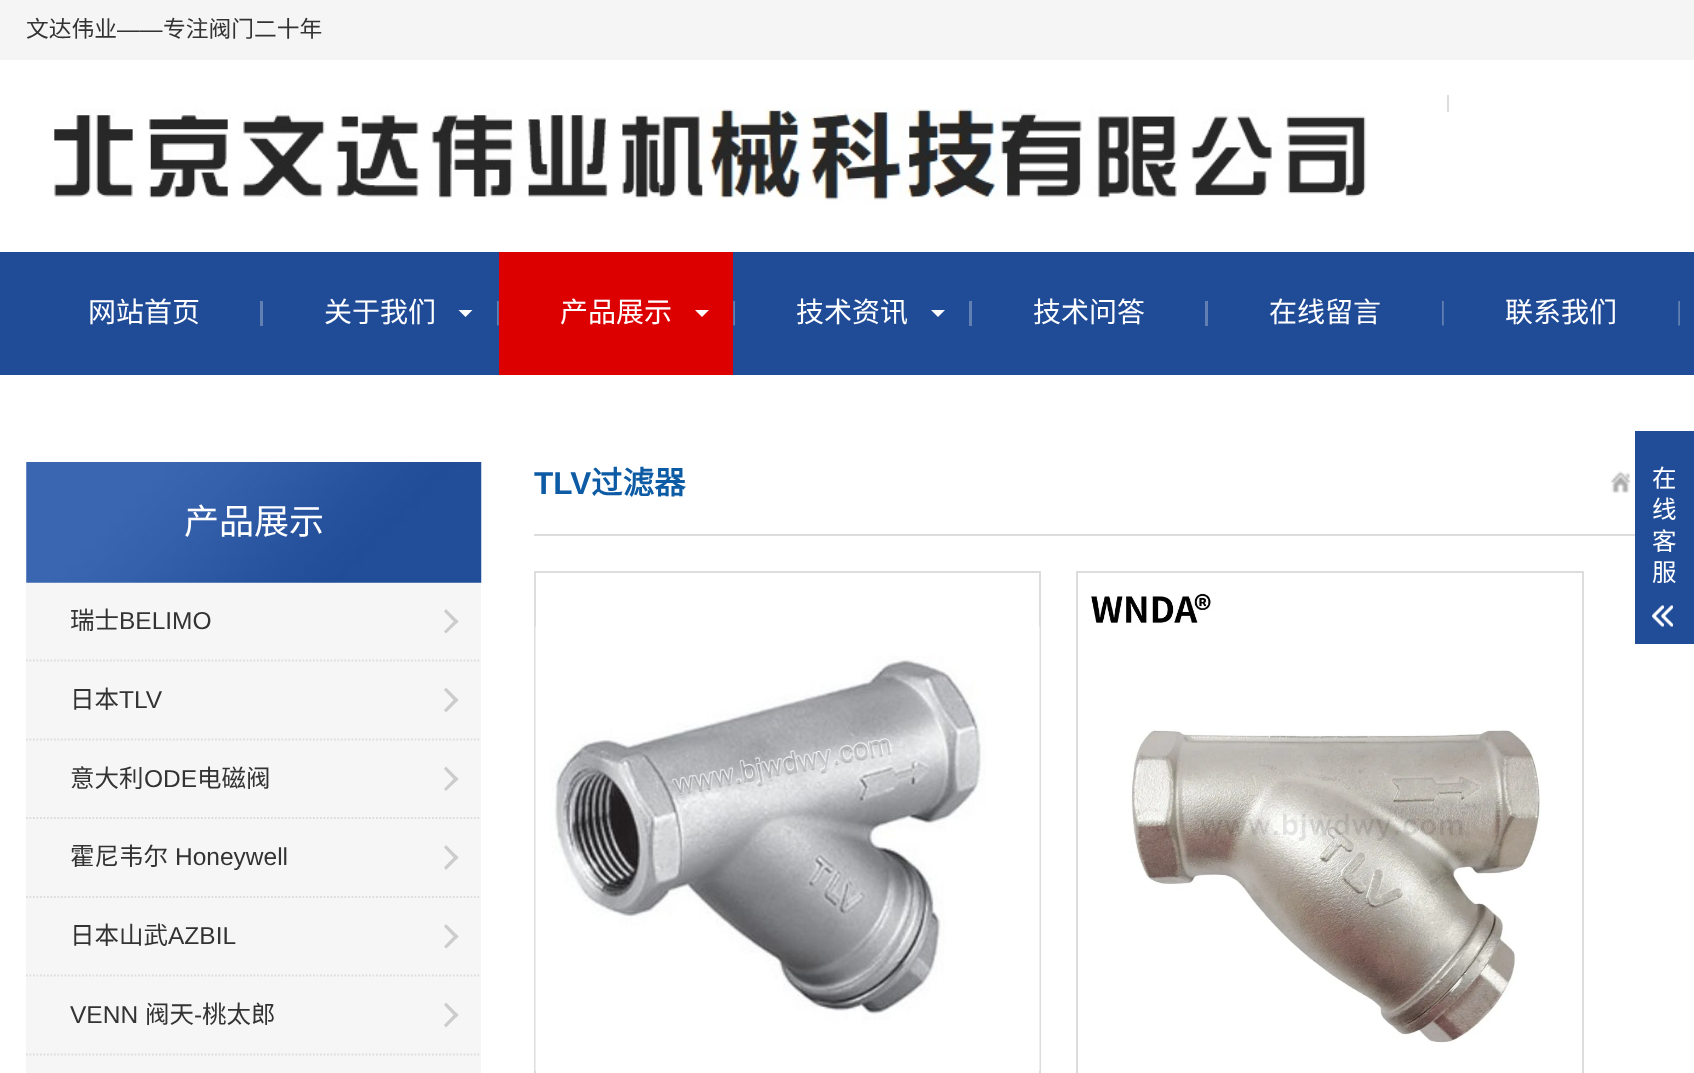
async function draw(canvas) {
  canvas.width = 1694
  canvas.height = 1073
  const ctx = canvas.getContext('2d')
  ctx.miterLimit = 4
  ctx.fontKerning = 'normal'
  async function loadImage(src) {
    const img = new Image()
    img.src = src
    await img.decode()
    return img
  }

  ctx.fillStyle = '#fff'
  ctx.fillRect(0, 0, 1694, 1073)
  ctx.fillStyle = '#f5f5f5'
  ctx.fillRect(0, 0, 1694, 60)
  ctx.font = '22.75px Noto Sans CJK SC'
  ctx.fillStyle = '#333'
  ctx.fillText('文达伟业', 26, 37)
  ctx.font = '22.75px Liberation Sans'
  ctx.fillText('——', 117, 37)
  ctx.font = '22.75px Noto Sans CJK SC'
  ctx.fillText('专注阀门二十年', 163, 37)
  ctx.fillStyle = '#ddd'
  ctx.fillRect(1447, 95, 2, 17)
  ctx.drawImage(await loadImage('image0.png'), 54, 108, 1313, 95)
  ctx.fillStyle = '#204c97'
  ctx.fillRect(0, 252, 1694, 123)
  ctx.fillStyle = '#617fb1'
  ctx.fillRect(260, 301, 3, 25)
  ctx.font = '28px Noto Sans CJK SC'
  ctx.fillStyle = '#fff'
  ctx.fillText('网站首页', 88, 322)
  ctx.drawImage(await loadImage('image1.png'), 497, 301, 2, 25)
  ctx.fillText('关于我们', 324, 322)
  ctx.beginPath()
  ctx.moveTo(458.5, 310)
  ctx.lineTo(472.5, 310)
  ctx.lineTo(465.5, 317)
  ctx.closePath()
  ctx.fill()
  ctx.drawImage(await loadImage('image2.png'), 733, 301, 2, 25)
  ctx.fillStyle = '#d00'
  ctx.fillRect(499, 252, 234, 123)
  ctx.fillStyle = '#fff'
  ctx.fillText('产品展示', 560, 322)
  ctx.beginPath()
  ctx.moveTo(695, 310)
  ctx.lineTo(709, 310)
  ctx.lineTo(702, 317)
  ctx.closePath()
  ctx.fill()
  ctx.fillStyle = '#617fb1'
  ctx.fillRect(969, 301, 3, 25)
  ctx.fillStyle = '#fff'
  ctx.fillText('技术资讯', 796, 322)
  ctx.beginPath()
  ctx.moveTo(931, 310)
  ctx.lineTo(945, 310)
  ctx.lineTo(938, 317)
  ctx.closePath()
  ctx.fill()
  ctx.fillStyle = '#617fb1'
  ctx.fillRect(1205, 301, 3, 25)
  ctx.fillStyle = '#fff'
  ctx.fillText('技术问答', 1033, 322)
  ctx.drawImage(await loadImage('image1.png'), 1442, 301, 2, 25)
  ctx.fillText('在线留言', 1269, 322)
  ctx.drawImage(await loadImage('image2.png'), 1678, 301, 2, 25)
  ctx.fillText('联系我们', 1505, 322)
  ctx.fillStyle = '#ddd'
  ctx.fillRect(534, 534, 1101, 2)
  ctx.font = 'bold 31.5px Liberation Sans'
  ctx.fillStyle = '#0d5ba4'
  ctx.fillText('TLV', 534, 494)
  ctx.font = 'bold 31.5px Noto Sans CJK SC'
  ctx.fillText('过滤器', 591, 494)
  ctx.drawImage(await loadImage('image3.png'), 1610, 471, 21, 22)
  ctx.strokeStyle = '#ddd'
  ctx.lineWidth = 2
  ctx.strokeRect(535, 572, 505, 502)
  ctx.drawImage(await loadImage('image4.png'), 535, 626, 505, 445)
  ctx.strokeRect(1077, 572, 506, 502)
  ctx.drawImage(await loadImage('image5.png'), 1091, 593, 450, 450)
  ctx.fillStyle = '#f6f6f6'
  ctx.fillRect(26, 462, 455, 611)
  ctx.drawImage(await loadImage('image6.png'), 26, 462, 456, 121)
  ctx.font = '35px Noto Sans CJK SC'
  ctx.fillStyle = '#fff'
  ctx.fillText('产品展示', 184, 534)
  ctx.beginPath()
  ctx.moveTo(26, 660.5)
  ctx.lineTo(481, 660.5)
  ctx.lineWidth = 1.8
  ctx.setLineDash([1.75, 1.75])
  ctx.stroke()
  ctx.font = '24.5px Noto Sans CJK SC'
  ctx.fillStyle = '#333'
  ctx.fillText('瑞士', 70, 629)
  ctx.font = '24.5px Liberation Sans'
  ctx.fillText('BELIMO', 119, 629)
  ctx.fillStyle = '#ccc'
  ctx.beginPath()
  ctx.moveTo(458.5, 621.5)
  ctx.lineTo(446, 633.5)
  ctx.lineTo(444, 631.5)
  ctx.lineTo(456, 619)
  ctx.closePath()
  ctx.fill()
  ctx.beginPath()
  ctx.moveTo(458.5, 621.5)
  ctx.lineTo(456, 624)
  ctx.lineTo(444, 611.5)
  ctx.lineTo(446, 609)
  ctx.closePath()
  ctx.fill()
  ctx.beginPath()
  ctx.moveTo(26, 739.5)
  ctx.lineTo(481, 739.5)
  ctx.stroke()
  ctx.font = '24.5px Noto Sans CJK SC'
  ctx.fillStyle = '#333'
  ctx.fillText('日本', 70, 708)
  ctx.font = '24.5px Liberation Sans'
  ctx.fillText('TLV', 119, 708)
  ctx.fillStyle = '#ccc'
  ctx.beginPath()
  ctx.moveTo(458.5, 700)
  ctx.lineTo(446, 712.5)
  ctx.lineTo(444, 710)
  ctx.lineTo(456, 697.5)
  ctx.closePath()
  ctx.fill()
  ctx.beginPath()
  ctx.moveTo(458.5, 700)
  ctx.lineTo(456, 702.5)
  ctx.lineTo(444, 690)
  ctx.lineTo(446, 687.5)
  ctx.closePath()
  ctx.fill()
  ctx.beginPath()
  ctx.moveTo(26, 818)
  ctx.lineTo(481, 818)
  ctx.stroke()
  ctx.font = '24.5px Noto Sans CJK SC'
  ctx.fillStyle = '#333'
  ctx.fillText('意大利', 70, 787)
  ctx.font = '24.5px Liberation Sans'
  ctx.fillText('ODE', 144, 787)
  ctx.font = '24.5px Noto Sans CJK SC'
  ctx.fillText('电磁阀', 197, 787)
  ctx.fillStyle = '#ccc'
  ctx.beginPath()
  ctx.moveTo(458.5, 779)
  ctx.lineTo(446, 791)
  ctx.lineTo(444, 789)
  ctx.lineTo(456, 776.5)
  ctx.closePath()
  ctx.fill()
  ctx.beginPath()
  ctx.moveTo(458.5, 779)
  ctx.lineTo(456, 781.5)
  ctx.lineTo(444, 769)
  ctx.lineTo(446, 766.5)
  ctx.closePath()
  ctx.fill()
  ctx.beginPath()
  ctx.moveTo(26, 897)
  ctx.lineTo(481, 897)
  ctx.stroke()
  ctx.fillStyle = '#333'
  ctx.fillText('霍尼韦尔', 70, 865)
  ctx.font = '24.5px Liberation Sans'
  ctx.fillText('Honeywell', 175, 865)
  ctx.fillStyle = '#ccc'
  ctx.beginPath()
  ctx.moveTo(458.5, 857.5)
  ctx.lineTo(446, 870)
  ctx.lineTo(444, 867.5)
  ctx.lineTo(456, 855)
  ctx.closePath()
  ctx.fill()
  ctx.beginPath()
  ctx.moveTo(458.5, 857.5)
  ctx.lineTo(456, 860)
  ctx.lineTo(444, 847.5)
  ctx.lineTo(446, 845)
  ctx.closePath()
  ctx.fill()
  ctx.beginPath()
  ctx.moveTo(26, 975.5)
  ctx.lineTo(481, 975.5)
  ctx.stroke()
  ctx.font = '24.5px Noto Sans CJK SC'
  ctx.fillStyle = '#333'
  ctx.fillText('日本山武', 70, 944)
  ctx.font = '24.5px Liberation Sans'
  ctx.fillText('AZBIL', 168, 944)
  ctx.fillStyle = '#ccc'
  ctx.beginPath()
  ctx.moveTo(458.5, 936.5)
  ctx.lineTo(446.5, 948.5)
  ctx.lineTo(444, 946.5)
  ctx.lineTo(456, 934)
  ctx.closePath()
  ctx.fill()
  ctx.beginPath()
  ctx.moveTo(458.5, 936.5)
  ctx.lineTo(456, 939)
  ctx.lineTo(444, 926.5)
  ctx.lineTo(446, 924)
  ctx.closePath()
  ctx.fill()
  ctx.beginPath()
  ctx.moveTo(26, 1054.5)
  ctx.lineTo(481, 1054.5)
  ctx.stroke()
  ctx.fillStyle = '#333'
  ctx.fillText('VENN', 70, 1023)
  ctx.font = '24.5px Noto Sans CJK SC'
  ctx.fillText('阀天', 145, 1023)
  ctx.font = '24.5px Liberation Sans'
  ctx.fillText('-', 194, 1023)
  ctx.font = '24.5px Noto Sans CJK SC'
  ctx.fillText('桃太郎', 202, 1023)
  ctx.fillStyle = '#ccc'
  ctx.beginPath()
  ctx.moveTo(458.5, 1015)
  ctx.lineTo(446, 1027.5)
  ctx.lineTo(444, 1025)
  ctx.lineTo(456, 1012.5)
  ctx.closePath()
  ctx.fill()
  ctx.beginPath()
  ctx.moveTo(458.5, 1015)
  ctx.lineTo(456, 1017.5)
  ctx.lineTo(444, 1005)
  ctx.lineTo(446, 1002.5)
  ctx.closePath()
  ctx.fill()
  ctx.fillStyle = '#214d98'
  ctx.fillRect(1635, 431, 59, 213)
  ctx.fillStyle = '#fff'
  ctx.fillText('在', 1652, 487)
  ctx.fillText('线', 1652, 518)
  ctx.fillText('客', 1652, 550)
  ctx.fillText('服', 1652, 581)
  ctx.drawImage(await loadImage('image7.png'), 1652, 605, 21, 22)
}

draw(document.querySelector('canvas'))
